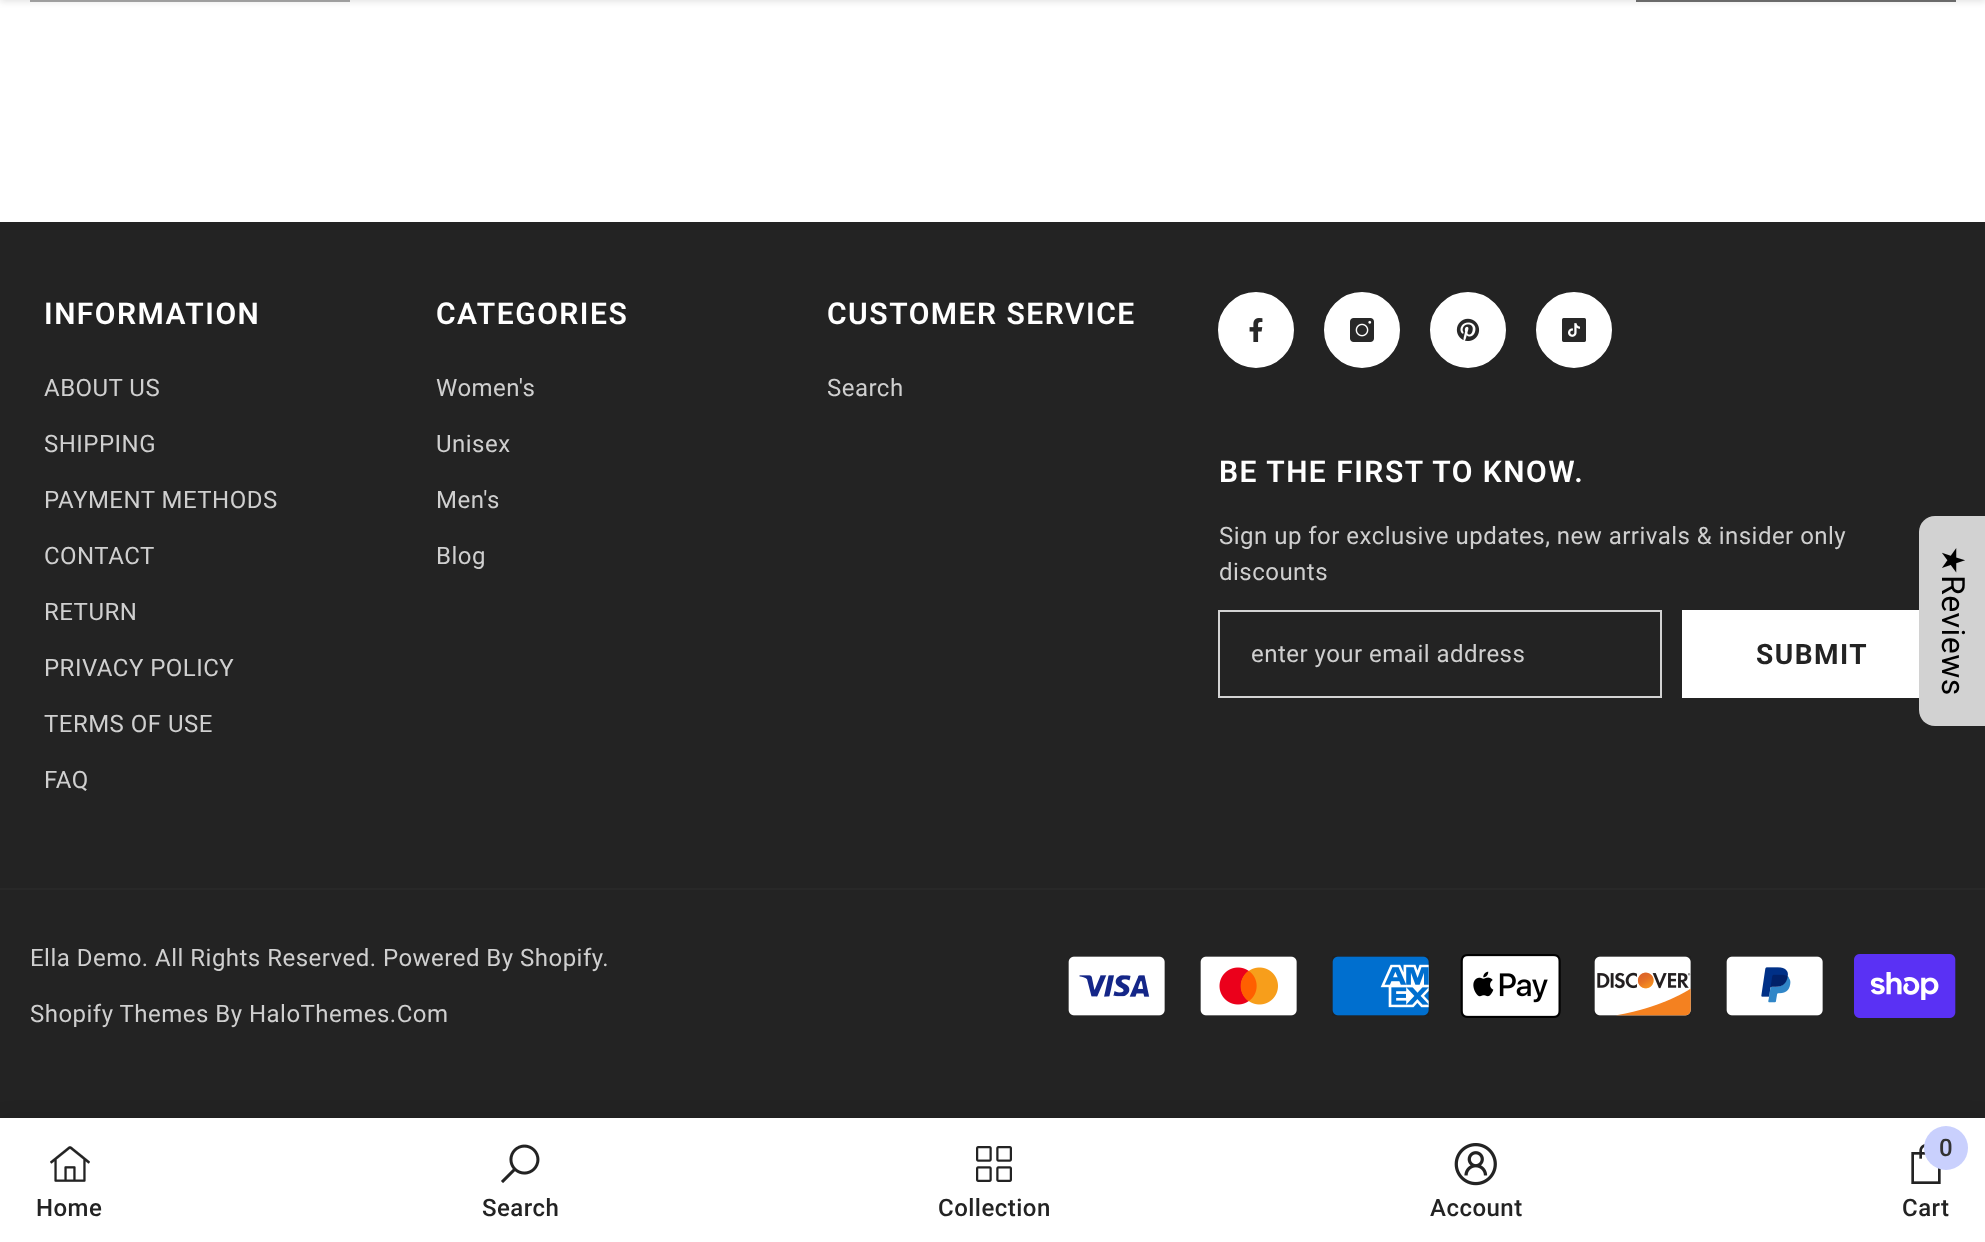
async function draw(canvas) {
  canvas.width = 1985
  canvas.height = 1242
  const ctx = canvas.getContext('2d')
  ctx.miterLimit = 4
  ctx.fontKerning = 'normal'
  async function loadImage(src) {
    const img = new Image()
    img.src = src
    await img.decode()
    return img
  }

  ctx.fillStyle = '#fff'
  ctx.fillRect(0, 0, 1985, 1242)
  ctx.strokeStyle = '#aaa'
  ctx.lineWidth = 2
  ctx.strokeRect(31, -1, 318, 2)
  ctx.strokeStyle = '#727272'
  ctx.strokeRect(1637, -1, 318, 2)
  ctx.fillStyle = '#0000001a'
  ctx.filter = 'blur(3px)'
  ctx.beginPath()
  ctx.rect(0, -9, 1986, 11)
  ctx.fill()
  ctx.filter = 'none'
  ctx.fillStyle = '#232323'
  ctx.fillRect(0, 222, 1985, 666)
  ctx.letterSpacing = '1.5px'
  ctx.font = '600 30px Roboto'
  ctx.fillStyle = '#fff'
  ctx.fillText('INFORMATION', 44, 324)
  ctx.letterSpacing = '0.48px'
  ctx.font = '24px Roboto'
  ctx.fillStyle = '#cfcfcf'
  ctx.fillText('ABOUT US', 44, 396)
  ctx.fillText('SHIPPING', 44, 452)
  ctx.fillText('PAYMENT METHODS', 44, 508)
  ctx.fillText('CONTACT', 44, 564)
  ctx.fillText('RETURN', 44, 620)
  ctx.fillText('PRIVACY POLICY', 44, 676)
  ctx.fillText('TERMS OF USE', 44, 732)
  ctx.fillText('FAQ', 44, 788)
  ctx.letterSpacing = '1.5px'
  ctx.font = '600 30px Roboto'
  ctx.fillStyle = '#fff'
  ctx.fillText('CATEGORIES', 436, 324)
  ctx.letterSpacing = '0.48px'
  ctx.font = '24px Roboto'
  ctx.fillStyle = '#cfcfcf'
  ctx.fillText('Women\'s', 436, 396)
  ctx.fillText('Unisex', 436, 452)
  ctx.fillText('Men\'s', 436, 508)
  ctx.fillText('Blog', 436, 564)
  ctx.letterSpacing = '1.5px'
  ctx.font = '600 30px Roboto'
  ctx.fillStyle = '#fff'
  ctx.fillText('CUSTOMER SERVICE', 827, 324)
  ctx.letterSpacing = '0.48px'
  ctx.font = '24px Roboto'
  ctx.fillStyle = '#cfcfcf'
  ctx.fillText('Search', 827, 396)
  ctx.fillStyle = '#fff'
  ctx.beginPath()
  ctx.arc(1256, 330, 37, 0, 2 * Math.PI)
  ctx.fill()
  ctx.strokeStyle = '#fff'
  ctx.stroke()
  ctx.drawImage(await loadImage('image0.png'), 1249, 318, 14, 24)
  ctx.beginPath()
  ctx.arc(1362, 330, 37, 0, 2 * Math.PI)
  ctx.fill()
  ctx.stroke()
  ctx.drawImage(await loadImage('image1.png'), 1350, 318, 24, 24)
  ctx.beginPath()
  ctx.arc(1468, 330, 37, 0, 2 * Math.PI)
  ctx.fill()
  ctx.stroke()
  ctx.drawImage(await loadImage('image2.png'), 1456, 318, 24, 23)
  ctx.beginPath()
  ctx.arc(1574, 330, 37, 0, 2 * Math.PI)
  ctx.fill()
  ctx.stroke()
  ctx.drawImage(await loadImage('image3.png'), 1562, 318, 24, 24)
  ctx.letterSpacing = '1.5px'
  ctx.font = '600 30px Roboto'
  ctx.fillText('BE THE FIRST TO KNOW.', 1219, 482)
  ctx.letterSpacing = '0.48px'
  ctx.font = '24px Roboto'
  ctx.fillStyle = '#cfcfcf'
  ctx.fillText('Sign up for exclusive updates, new arrivals & insider only', 1219, 544)
  ctx.fillText('discounts', 1219, 580)
  ctx.strokeStyle = '#d3d3d3'
  ctx.strokeRect(1219, 611, 442, 86)
  ctx.fillText('enter your email address', 1251, 662)
  ctx.fillStyle = '#fff'
  ctx.fillRect(1682, 610, 237, 88)
  ctx.letterSpacing = '1.5px'
  ctx.font = 'bold 28px Roboto'
  ctx.fillStyle = '#232323'
  ctx.fillText('SUBMIT', 1756, 664)
  ctx.fillRect(0, 890, 1985, 228)
  ctx.fillStyle = '#282828'
  ctx.fillRect(0, 888, 1985, 2)
  ctx.letterSpacing = '0.48px'
  ctx.font = '24px Roboto'
  ctx.fillStyle = '#cfcfcf'
  ctx.fillText('Ella Demo. All Rights Reserved. Powered By Shopify.', 30, 966)
  ctx.fillText('Shopify Themes By HaloThemes.Com', 30, 1022)
  ctx.drawImage(await loadImage('image4.png'), 1068, 956, 97, 60)
  ctx.drawImage(await loadImage('image5.png'), 1200, 956, 97, 60)
  ctx.drawImage(await loadImage('image6.png'), 1332, 956, 97, 60)
  ctx.drawImage(await loadImage('image7.png'), 1460, 954, 101, 64)
  ctx.drawImage(await loadImage('image8.png'), 1594, 956, 97, 60)
  ctx.drawImage(await loadImage('image9.png'), 1726, 956, 97, 60)
  ctx.drawImage(await loadImage('image10.png'), 1854, 954, 102, 64)
  ctx.fillStyle = '#0000001f'
  ctx.filter = 'blur(9px)'
  ctx.beginPath()
  ctx.rect(0, 1118, 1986, 124)
  ctx.fill()
  ctx.filter = 'none'
  ctx.fillStyle = '#fff'
  ctx.fillRect(0, 1118, 1985, 124)
  ctx.drawImage(await loadImage('image11.png'), 50, 1146, 40, 36)
  ctx.font = '500 24px Roboto'
  ctx.fillStyle = '#232323'
  ctx.fillText('Home', 36, 1216)
  ctx.drawImage(await loadImage('image12.png'), 501, 1144, 39, 39)
  ctx.fillText('Search', 482, 1216)
  ctx.drawImage(await loadImage('image13.png'), 976, 1146, 36, 36)
  ctx.fillText('Collection', 938, 1216)
  ctx.drawImage(await loadImage('image14.png'), 1454, 1143, 43, 43)
  ctx.fillText('Account', 1430, 1216)
  ctx.drawImage(await loadImage('image15.png'), 1911, 1144, 30, 40)
  ctx.fillStyle = '#c9d0fd'
  ctx.beginPath()
  ctx.arc(1946, 1148, 22, 0, 2 * Math.PI)
  ctx.fill()
  ctx.fillStyle = '#323232'
  ctx.fillText('0', 1939, 1156)
  ctx.fillStyle = '#232323'
  ctx.fillText('Cart', 1902, 1216)
  ctx.fillStyle = '#d2d2d2'
  ctx.beginPath()
  ctx.moveTo(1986, 516)
  ctx.lineTo(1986, 726)
  ctx.lineTo(1935, 726)
  ctx.bezierCurveTo(1926, 726, 1919, 719, 1919, 710)
  ctx.lineTo(1919, 532)
  ctx.bezierCurveTo(1919, 523, 1926, 516, 1935, 516)
  ctx.closePath()
  ctx.fill()
  ctx.font = '32px DejaVu Sans'
  ctx.fillStyle = '#000'
  ctx.save()
  ctx.translate(1942, 546)
  ctx.rotate(90 * Math.PI / 180)
  ctx.fillText('★', 0, 0)
  ctx.restore()
  ctx.font = '32px Roboto'
  ctx.save()
  ctx.translate(1942, 575)
  ctx.rotate(90 * Math.PI / 180)
  ctx.fillText('Reviews', 0, 0)
  ctx.restore()
}

draw(document.querySelector('canvas'))
